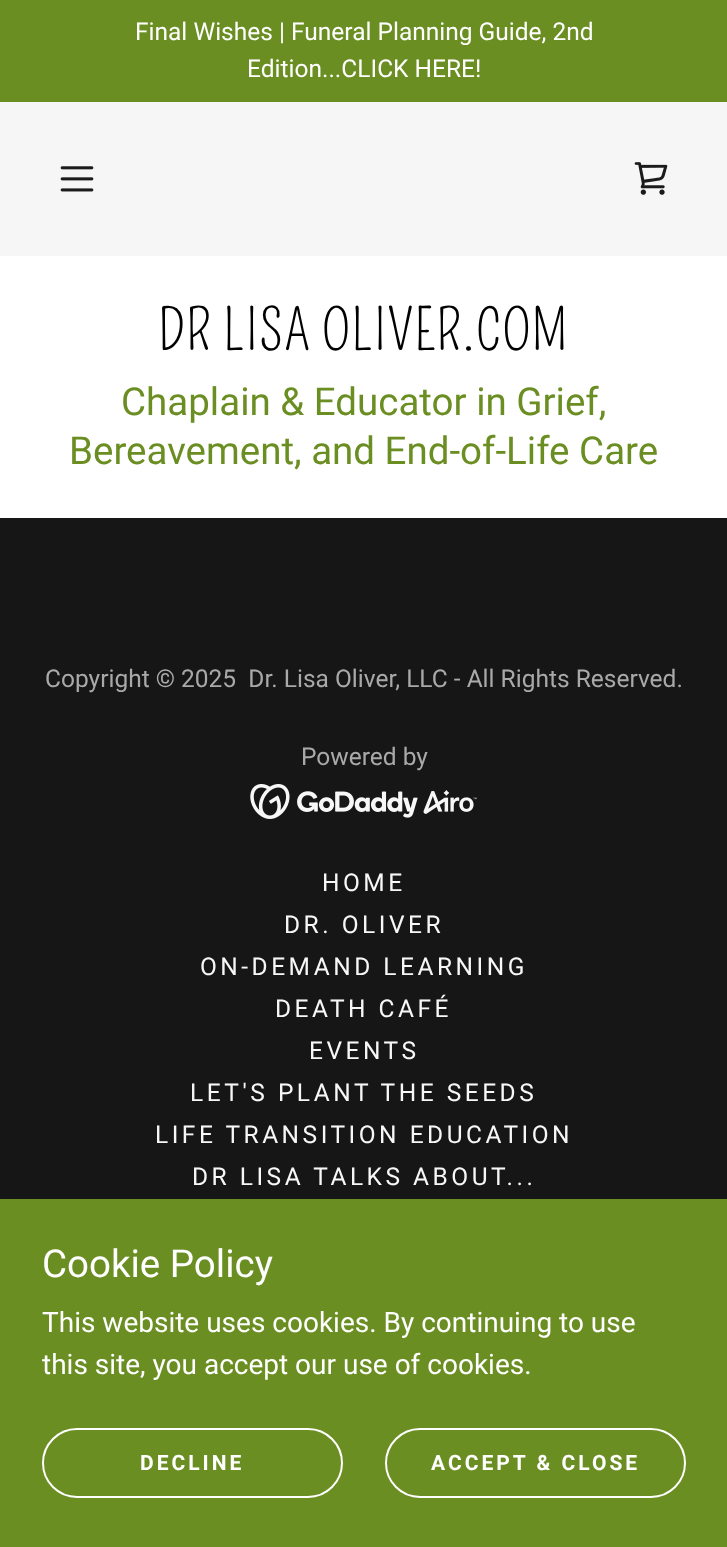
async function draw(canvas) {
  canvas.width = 727
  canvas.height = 1547
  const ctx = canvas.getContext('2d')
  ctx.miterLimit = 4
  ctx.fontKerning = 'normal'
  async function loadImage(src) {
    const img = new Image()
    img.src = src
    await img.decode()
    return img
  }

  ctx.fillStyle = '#161616'
  ctx.fillRect(0, 0, 727, 1547)
  ctx.fillStyle = '#fff'
  ctx.fillRect(0, 256, 727, 262)
  ctx.fillStyle = '#6b8e23'
  ctx.fillRect(0, 0, 727, 102)
  ctx.font = '24.5px Roboto'
  ctx.fillStyle = '#fff'
  ctx.fillText('Final Wishes | Funeral Planning Guide, 2nd', 135, 40)
  ctx.fillText('Edition...CLICK HERE!', 247, 77)
  ctx.fillStyle = '#f6f6f6'
  ctx.fillRect(0, 102, 727, 154)
  ctx.drawImage(await loadImage('image0.png'), 60, 166, 34, 26)
  ctx.drawImage(await loadImage('image1.png'), 634, 162, 34, 33)
  ctx.letterSpacing = '1.1px'
  ctx.font = '56px Pompiere'
  ctx.fillStyle = '#000'
  ctx.fillText('DR LISA OLIVER.COM', 158, 350)
  ctx.letterSpacing = '0px'
  ctx.font = '38.5px Roboto'
  ctx.fillStyle = '#6b8e23'
  ctx.fillText('Chaplain & Educator in Grief,', 121, 415)
  ctx.fillText('Bereavement, and End-of-Life Care', 69, 464)
  ctx.font = '24.5px Roboto'
  ctx.fillStyle = '#a9a9a9'
  ctx.fillText('Copyright © 2025  Dr. Lisa Oliver, LLC - All Rights Reserved.', 45, 687)
  ctx.fillText('Powered by', 301, 765)
  ctx.drawImage(await loadImage('image2.png'), 250, 784, 227, 35)
  ctx.letterSpacing = '3.5px'
  ctx.fillStyle = '#f7f7f7'
  ctx.fillText('HOME', 322, 891)
  ctx.fillText('DR. OLIVER', 284, 933)
  ctx.fillText('ON-DEMAND LEARNING', 200, 975)
  ctx.fillText('DEATH CAFÉ', 275, 1017)
  ctx.fillText('EVENTS', 309, 1059)
  ctx.fillText('LET\'S PLANT THE SEEDS', 190, 1101)
  ctx.fillText('LIFE TRANSITION EDUCATION', 155, 1143)
  ctx.fillText('DR LISA TALKS ABOUT...', 192, 1185)
  ctx.fillStyle = '#6b8e23'
  ctx.fillRect(0, 1199, 727, 348)
  ctx.letterSpacing = '0px'
  ctx.font = '38.5px Roboto'
  ctx.fillStyle = '#fff'
  ctx.fillText('Cookie Policy', 42, 1277)
  ctx.font = '28px Roboto'
  ctx.fillText('This website uses cookies. By continuing to use', 42, 1332)
  ctx.fillText('this site, you accept our use of cookies.', 42, 1374)
  ctx.beginPath()
  ctx.roundRect(43, 1429, 299, 68, 34)
  ctx.strokeStyle = '#fff'
  ctx.lineWidth = 2
  ctx.stroke()
  ctx.letterSpacing = '3px'
  ctx.font = 'bold 21px Roboto'
  ctx.fillText('DECLINE', 140, 1470)
  ctx.beginPath()
  ctx.roundRect(386, 1429, 299, 68, 34)
  ctx.stroke()
  ctx.fillText('ACCEPT & CLOSE', 431, 1470)
}

draw(document.querySelector('canvas'))
